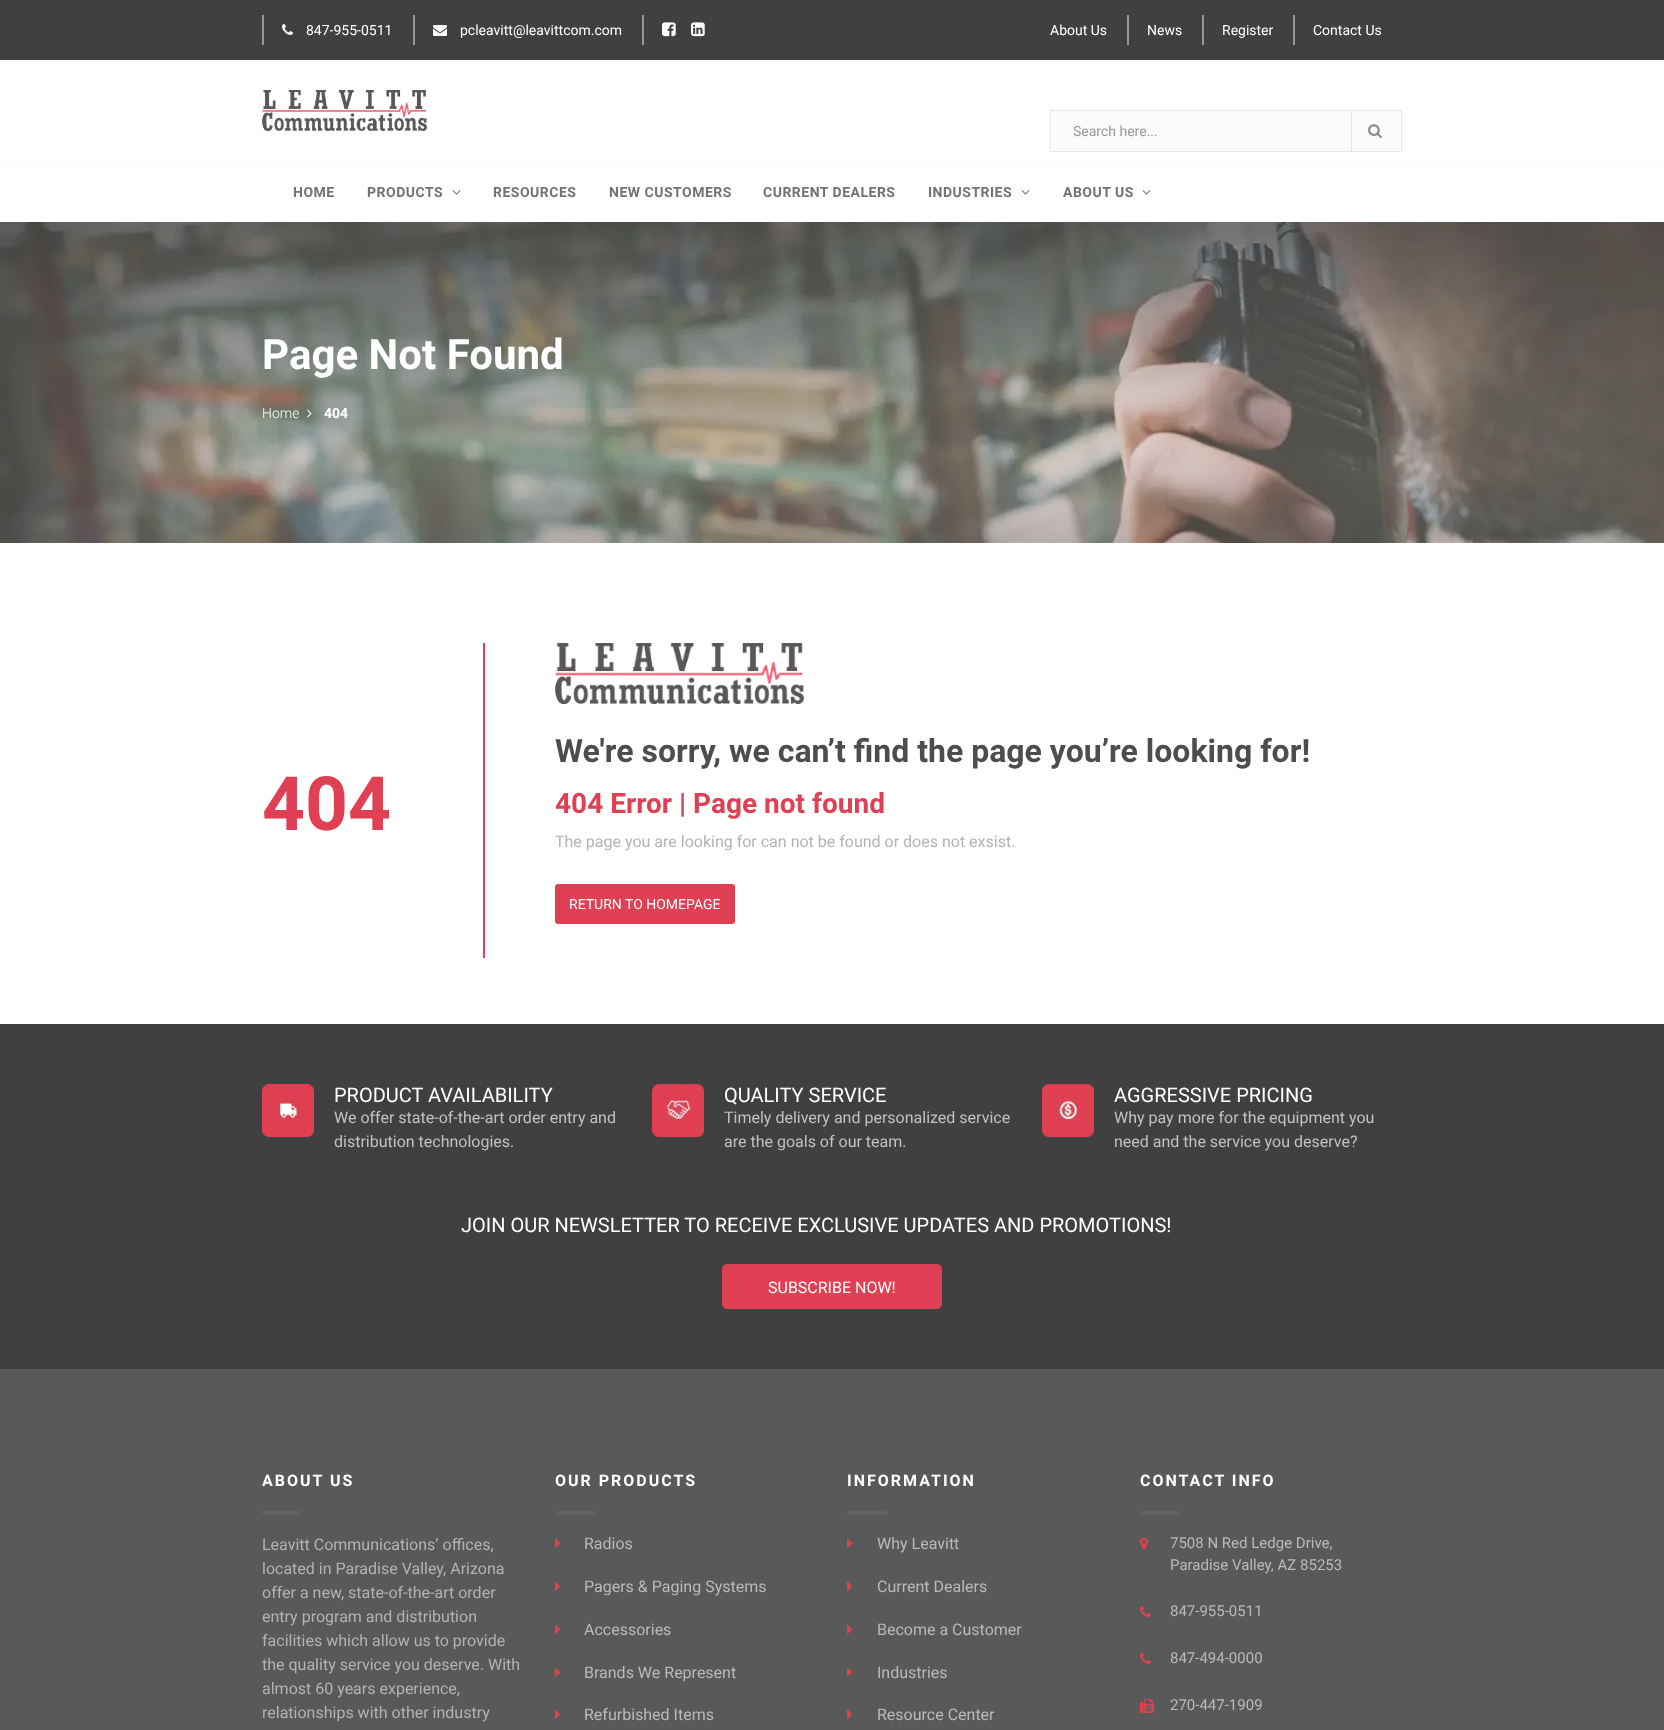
async function draw(canvas) {
  canvas.width = 1664
  canvas.height = 1730
  const ctx = canvas.getContext('2d')
  ctx.miterLimit = 4
  ctx.fontKerning = 'normal'
  async function loadImage(src) {
    const img = new Image()
    img.src = src
    await img.decode()
    return img
  }

  ctx.fillStyle = '#fff'
  ctx.fillRect(0, 0, 1664, 1730)
  ctx.fillStyle = '#404040'
  ctx.fillRect(0, 0, 1664, 60)
  ctx.fillStyle = '#969696'
  ctx.fillRect(262, 15, 2, 30)
  ctx.drawImage(await loadImage('image0.png'), 282, 24, 11, 11)
  ctx.font = '14px Roboto'
  ctx.fillStyle = '#fff'
  ctx.fillText('847-955-0511', 306, 35)
  ctx.fillStyle = '#969696'
  ctx.fillRect(413, 15, 2, 30)
  ctx.drawImage(await loadImage('image1.png'), 433, 25, 14, 11)
  ctx.fillStyle = '#fff'
  ctx.fillText('pcleavitt@leavittcom.com', 460, 35)
  ctx.fillStyle = '#969696'
  ctx.fillRect(642, 15, 2, 30)
  ctx.drawImage(await loadImage('image2.png'), 662, 22, 14, 15)
  ctx.drawImage(await loadImage('image3.png'), 691, 22, 14, 15)
  ctx.fillStyle = '#fff'
  ctx.fillText('About Us', 1050, 35)
  ctx.fillStyle = '#969696'
  ctx.fillRect(1127, 15, 2, 30)
  ctx.fillStyle = '#fff'
  ctx.fillText('News', 1147, 35)
  ctx.fillStyle = '#969696'
  ctx.fillRect(1202, 15, 2, 30)
  ctx.fillStyle = '#fff'
  ctx.fillText('Register', 1222, 35)
  ctx.fillStyle = '#969696'
  ctx.fillRect(1293, 15, 2, 30)
  ctx.fillStyle = '#fff'
  ctx.fillText('Contact Us', 1313, 35)
  ctx.drawImage(await loadImage('image4.png'), 262, 90, 165, 41)
  ctx.strokeStyle = '#e4e8e9'
  ctx.strokeRect(1050.5, 110.5, 351, 41)
  ctx.fillStyle = '#fbfbfb'
  ctx.fillRect(1051, 111, 300, 40)
  ctx.fillStyle = '#989898'
  ctx.fillText('Search here...', 1073, 136)
  ctx.fillStyle = '#fbfbfb'
  ctx.fillRect(1352, 111, 49, 40)
  ctx.fillStyle = '#e4e8e9'
  ctx.fillRect(1351, 111, 1, 40)
  ctx.drawImage(await loadImage('image5.png'), 1368, 124, 14, 15)
  ctx.fillStyle = '#f5f5f5'
  ctx.fillRect(0, 161, 1664, 1)
  ctx.letterSpacing = '0.5px'
  ctx.font = 'bold 14px Roboto'
  ctx.fillStyle = '#737373'
  ctx.fillText('HOME', 293, 197)
  ctx.fillText('PRODUCTS', 367, 197)
  ctx.drawImage(await loadImage('image6.png'), 452, 190, 9, 5)
  ctx.fillText('RESOURCES', 493, 197)
  ctx.fillText('NEW CUSTOMERS', 609, 197)
  ctx.fillText('CURRENT DEALERS', 763, 197)
  ctx.fillText('INDUSTRIES', 928, 197)
  ctx.drawImage(await loadImage('image6.png'), 1021, 190, 9, 5)
  ctx.fillText('ABOUT US', 1063, 197)
  ctx.drawImage(await loadImage('image6.png'), 1142, 190, 9, 5)
  ctx.drawImage(await loadImage('image7.png'), 0, 222, 1664, 321)
  ctx.letterSpacing = '0px'
  ctx.font = 'bold 42px Roboto'
  ctx.fillStyle = '#fff'
  ctx.fillText('Page Not Found', 262, 369)
  ctx.font = '300 14px Roboto'
  ctx.fillText('Home', 262, 418)
  ctx.drawImage(await loadImage('image8.png'), 307, 409, 5, 9)
  ctx.font = 'bold 14px Roboto'
  ctx.fillText('404', 324, 418)
  ctx.font = 'bold 75px Roboto'
  ctx.fillStyle = '#e04053'
  ctx.fillText('404', 262, 830)
  ctx.fillRect(483, 643, 2, 315)
  ctx.drawImage(await loadImage('image9.png'), 555, 643, 249, 61)
  ctx.font = 'bold 32px Roboto'
  ctx.fillStyle = '#4d4d4d'
  ctx.fillText('We\'re sorry, we can’t find the page you’re looking for!', 555, 762)
  ctx.font = 'bold 28px Roboto'
  ctx.fillStyle = '#e04053'
  ctx.fillText('404 Error | Page not found', 555, 813)
  ctx.font = '16px Roboto'
  ctx.fillStyle = '#b3b3b3'
  ctx.fillText('The page you are looking for can not be found or does not exsist.', 555, 847)
  ctx.fillStyle = '#e04053'
  ctx.beginPath()
  ctx.roundRect(555, 884, 180, 40, 3)
  ctx.fill()
  ctx.font = '14px Roboto'
  ctx.fillStyle = '#fff'
  ctx.fillText('RETURN TO HOMEPAGE', 569, 909)
  ctx.fillStyle = '#404040'
  ctx.fillRect(0, 1024, 1664, 345)
  ctx.drawImage(await loadImage('image10.png'), 262, 1084, 52, 53)
  ctx.font = '20px Roboto'
  ctx.fillStyle = '#fff'
  ctx.fillText('PRODUCT AVAILABILITY', 334, 1102)
  ctx.font = '16px Roboto'
  ctx.fillStyle = '#c2c2c2'
  ctx.fillText('We offer state-of-the-art order entry and', 334, 1123)
  ctx.fillText('distribution technologies.', 334, 1147)
  ctx.drawImage(await loadImage('image11.png'), 652, 1084, 52, 53)
  ctx.font = '20px Roboto'
  ctx.fillStyle = '#fff'
  ctx.fillText('QUALITY SERVICE', 724, 1102)
  ctx.font = '16px Roboto'
  ctx.fillStyle = '#c2c2c2'
  ctx.fillText('Timely delivery and personalized service', 724, 1123)
  ctx.fillText('are the goals of our team.', 724, 1147)
  ctx.drawImage(await loadImage('image12.png'), 1042, 1084, 52, 53)
  ctx.font = '20px Roboto'
  ctx.fillStyle = '#fff'
  ctx.fillText('AGGRESSIVE PRICING', 1114, 1102)
  ctx.font = '16px Roboto'
  ctx.fillStyle = '#c2c2c2'
  ctx.fillText('Why pay more for the equipment you', 1114, 1123)
  ctx.fillText('need and the service you deserve?', 1114, 1147)
  ctx.font = '20px Roboto'
  ctx.fillStyle = '#fff'
  ctx.fillText('JOIN OUR NEWSLETTER TO RECEIVE EXCLUSIVE UPDATES AND PROMOTIONS!', 461, 1232)
  ctx.fillStyle = '#e04053'
  ctx.beginPath()
  ctx.roundRect(722.5, 1264.5, 219, 44, 4.5)
  ctx.fill()
  ctx.strokeStyle = '#e04053'
  ctx.stroke()
  ctx.font = '16px Roboto'
  ctx.fillStyle = '#fff'
  ctx.fillText('SUBSCRIBE NOW!', 768, 1293)
  ctx.fillStyle = '#595959'
  ctx.fillRect(0, 1369, 1664, 361)
  ctx.letterSpacing = '2px'
  ctx.font = 'bold 16px Roboto'
  ctx.fillStyle = '#fff'
  ctx.fillText('ABOUT US', 262, 1486)
  ctx.fillStyle = '#626262'
  ctx.beginPath()
  ctx.roundRect(262, 1511, 40, 4, 2)
  ctx.fill()
  ctx.letterSpacing = '0px'
  ctx.font = '16px Roboto'
  ctx.fillStyle = '#b3b3b3'
  ctx.fillText('Leavitt Communications’ offices,', 262, 1550)
  ctx.fillText('located in Paradise Valley, Arizona', 262, 1574)
  ctx.fillText('offer a new, state-of-the-art order', 262, 1598)
  ctx.fillText('entry program and distribution', 262, 1622)
  ctx.fillText('facilities which allow us to provide', 262, 1646)
  ctx.fillText('the quality service you deserve. With', 262, 1670)
  ctx.fillText('almost 60 years experience,', 262, 1694)
  ctx.fillText('relationships with other industry', 262, 1718)
  ctx.letterSpacing = '2px'
  ctx.font = 'bold 16px Roboto'
  ctx.fillStyle = '#fff'
  ctx.fillText('OUR PRODUCTS', 555, 1486)
  ctx.fillStyle = '#626262'
  ctx.beginPath()
  ctx.roundRect(555, 1511, 40, 4, 2)
  ctx.fill()
  ctx.drawImage(await loadImage('image13.png'), 555, 1538, 6, 10)
  ctx.letterSpacing = '0px'
  ctx.font = '16px Roboto'
  ctx.fillStyle = '#bababa'
  ctx.fillText('Radios', 584, 1549)
  ctx.drawImage(await loadImage('image13.png'), 555, 1581, 6, 10)
  ctx.fillText('Pagers & Paging Systems', 584, 1592)
  ctx.drawImage(await loadImage('image13.png'), 555, 1624, 6, 10)
  ctx.fillText('Accessories', 584, 1635)
  ctx.drawImage(await loadImage('image13.png'), 555, 1667, 6, 10)
  ctx.fillText('Brands We Represent', 584, 1678)
  ctx.drawImage(await loadImage('image13.png'), 555, 1709, 6, 10)
  ctx.fillText('Refurbished Items', 584, 1720)
  ctx.letterSpacing = '2px'
  ctx.font = 'bold 16px Roboto'
  ctx.fillStyle = '#fff'
  ctx.fillText('INFORMATION', 847, 1486)
  ctx.fillStyle = '#626262'
  ctx.beginPath()
  ctx.roundRect(847, 1511, 40, 4, 2)
  ctx.fill()
  ctx.drawImage(await loadImage('image13.png'), 847, 1538, 6, 10)
  ctx.letterSpacing = '0px'
  ctx.font = '16px Roboto'
  ctx.fillStyle = '#bababa'
  ctx.fillText('Why Leavitt', 877, 1549)
  ctx.drawImage(await loadImage('image13.png'), 847, 1581, 6, 10)
  ctx.fillText('Current Dealers', 877, 1592)
  ctx.drawImage(await loadImage('image13.png'), 847, 1624, 6, 10)
  ctx.fillText('Become a Customer', 877, 1635)
  ctx.drawImage(await loadImage('image13.png'), 847, 1667, 6, 10)
  ctx.fillText('Industries', 877, 1678)
  ctx.drawImage(await loadImage('image13.png'), 847, 1709, 6, 10)
  ctx.fillText('Resource Center', 877, 1720)
  ctx.letterSpacing = '2px'
  ctx.font = 'bold 16px Roboto'
  ctx.fillStyle = '#fff'
  ctx.fillText('CONTACT INFO', 1140, 1486)
  ctx.fillStyle = '#626262'
  ctx.beginPath()
  ctx.roundRect(1140, 1511, 40, 4, 2)
  ctx.fill()
  ctx.drawImage(await loadImage('image14.png'), 1140, 1538, 8, 12)
  ctx.letterSpacing = '0px'
  ctx.font = '15px Roboto'
  ctx.fillStyle = '#bababa'
  ctx.fillText('7508 N Red Ledge Drive,', 1170, 1548)
  ctx.fillText('Paradise Valley, AZ 85253', 1170, 1570)
  ctx.drawImage(await loadImage('image15.png'), 1140, 1606, 11, 11)
  ctx.fillText('847-955-0511', 1170, 1616)
  ctx.drawImage(await loadImage('image15.png'), 1140, 1653, 11, 11)
  ctx.fillText('847-494-0000', 1170, 1663)
  ctx.drawImage(await loadImage('image16.png'), 1140, 1699, 14, 14)
  ctx.fillText('270-447-1909', 1170, 1710)
}

draw(document.querySelector('canvas'))
